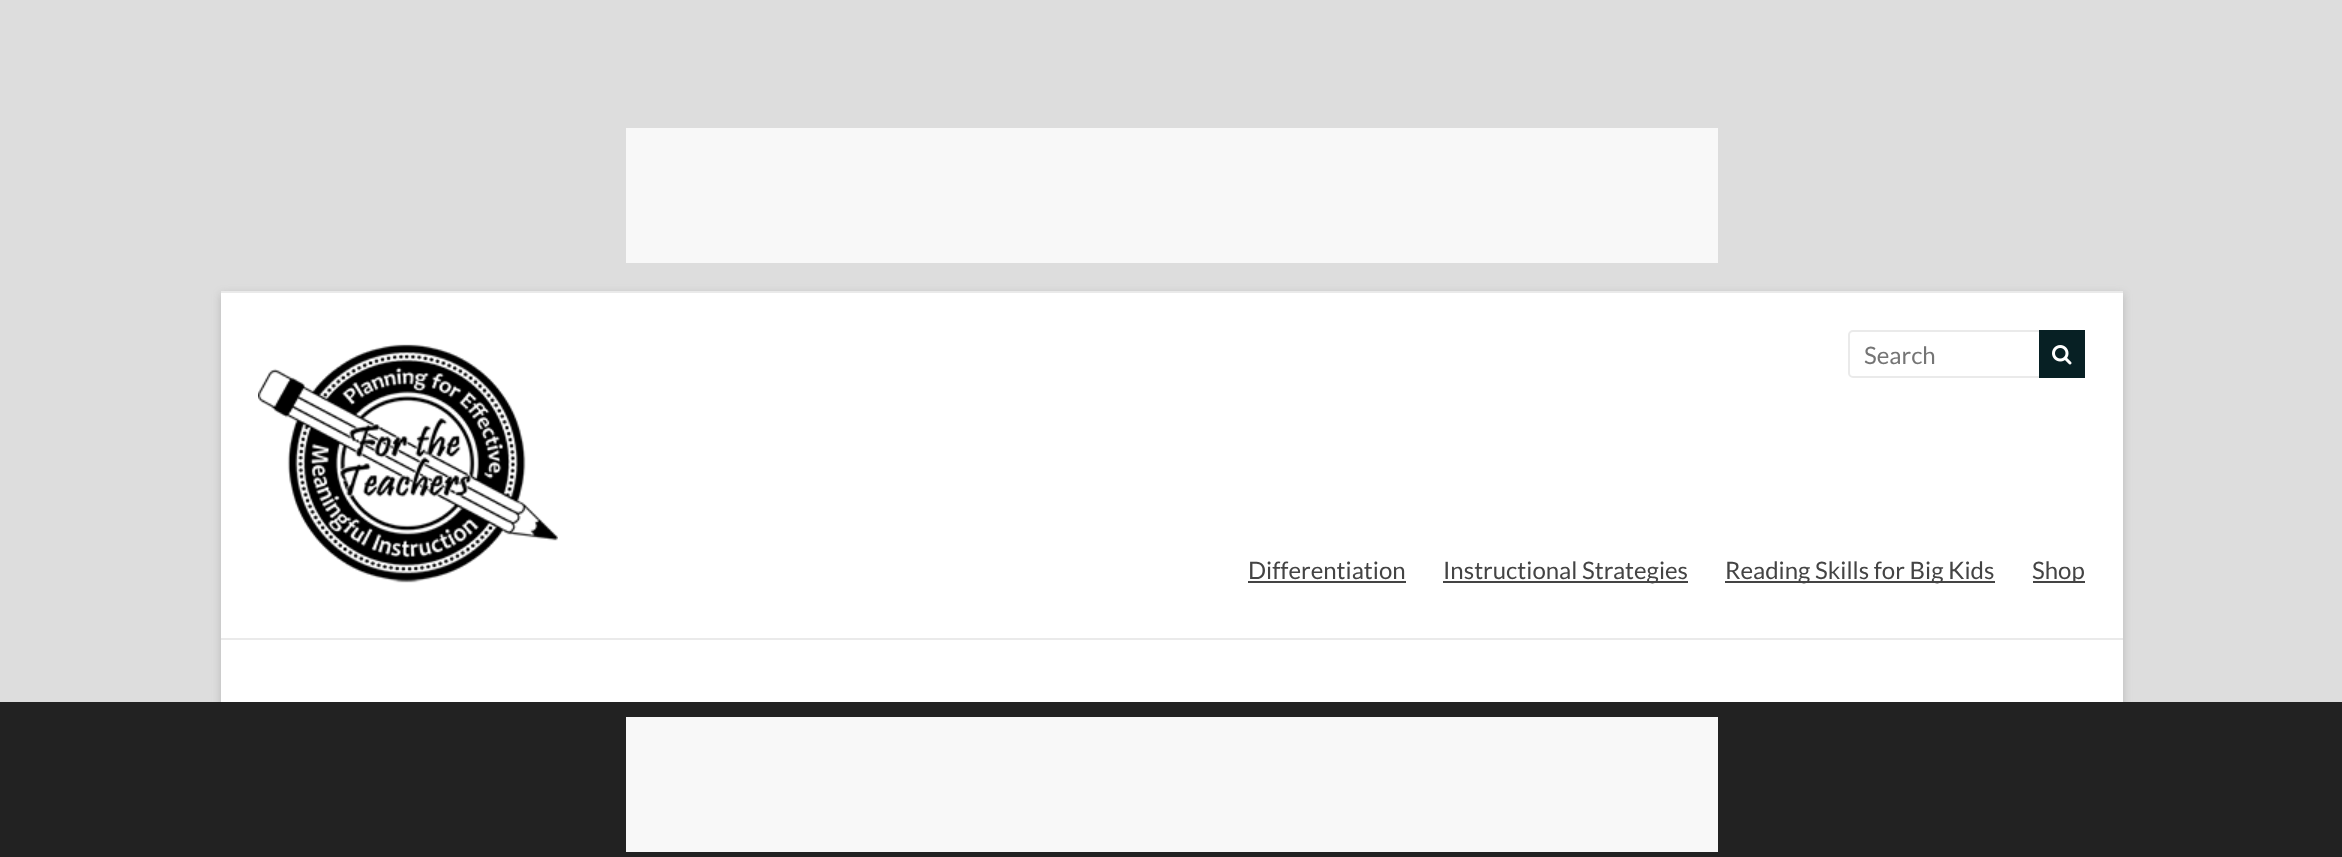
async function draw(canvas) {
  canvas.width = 2342
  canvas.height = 857
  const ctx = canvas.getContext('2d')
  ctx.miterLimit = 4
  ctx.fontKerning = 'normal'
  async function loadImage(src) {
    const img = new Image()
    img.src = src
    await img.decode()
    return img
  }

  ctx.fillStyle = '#ddd'
  ctx.fillRect(0, 0, 2342, 857)
  ctx.fillStyle = '#f8f8f8'
  ctx.fillRect(626, 128, 1092, 135)
  ctx.fillStyle = '#6464644d'
  ctx.filter = 'blur(4.5px)'
  ctx.beginPath()
  ctx.rect(221, 294, 1902, 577)
  ctx.fill()
  ctx.filter = 'none'
  ctx.fillStyle = '#fff'
  ctx.fillRect(221, 293, 1902, 409)
  ctx.fillStyle = '#eaeaea'
  ctx.fillRect(221, 291, 1902, 2)
  ctx.fillRect(221, 638, 1902, 2)
  ctx.drawImage(await loadImage('image0.png'), 258, 344, 300, 239)
  ctx.beginPath()
  ctx.roundRect(1849, 331, 193, 46, 4)
  ctx.strokeStyle = '#eaeaea'
  ctx.lineWidth = 2
  ctx.stroke()
  ctx.font = '24px Lato'
  ctx.fillStyle = '#757575'
  ctx.fillText('Search', 1864, 364)
  ctx.fillStyle = '#072024'
  ctx.fillRect(2039, 330, 46, 48)
  ctx.drawImage(await loadImage('image1.png'), 2052, 345, 20, 20)
  ctx.fillStyle = '#444'
  ctx.fillText('Differentiation', 1248, 579)
  ctx.fillRect(1248, 581, 158, 2)
  ctx.fillRect(1443, 581, 245, 2)
  ctx.fillText('Instructional Strategies', 1443, 579)
  ctx.fillRect(1725, 581, 270, 2)
  ctx.fillText('Reading Skills for Big Kids', 1725, 579)
  ctx.fillRect(2033, 581, 52, 2)
  ctx.fillText('Shop', 2032, 579)
  ctx.fillStyle = '#222'
  ctx.fillRect(0, 702, 2342, 155)
  ctx.fillStyle = '#f8f8f8'
  ctx.fillRect(626, 717, 1092, 135)
}

draw(document.querySelector('canvas'))
